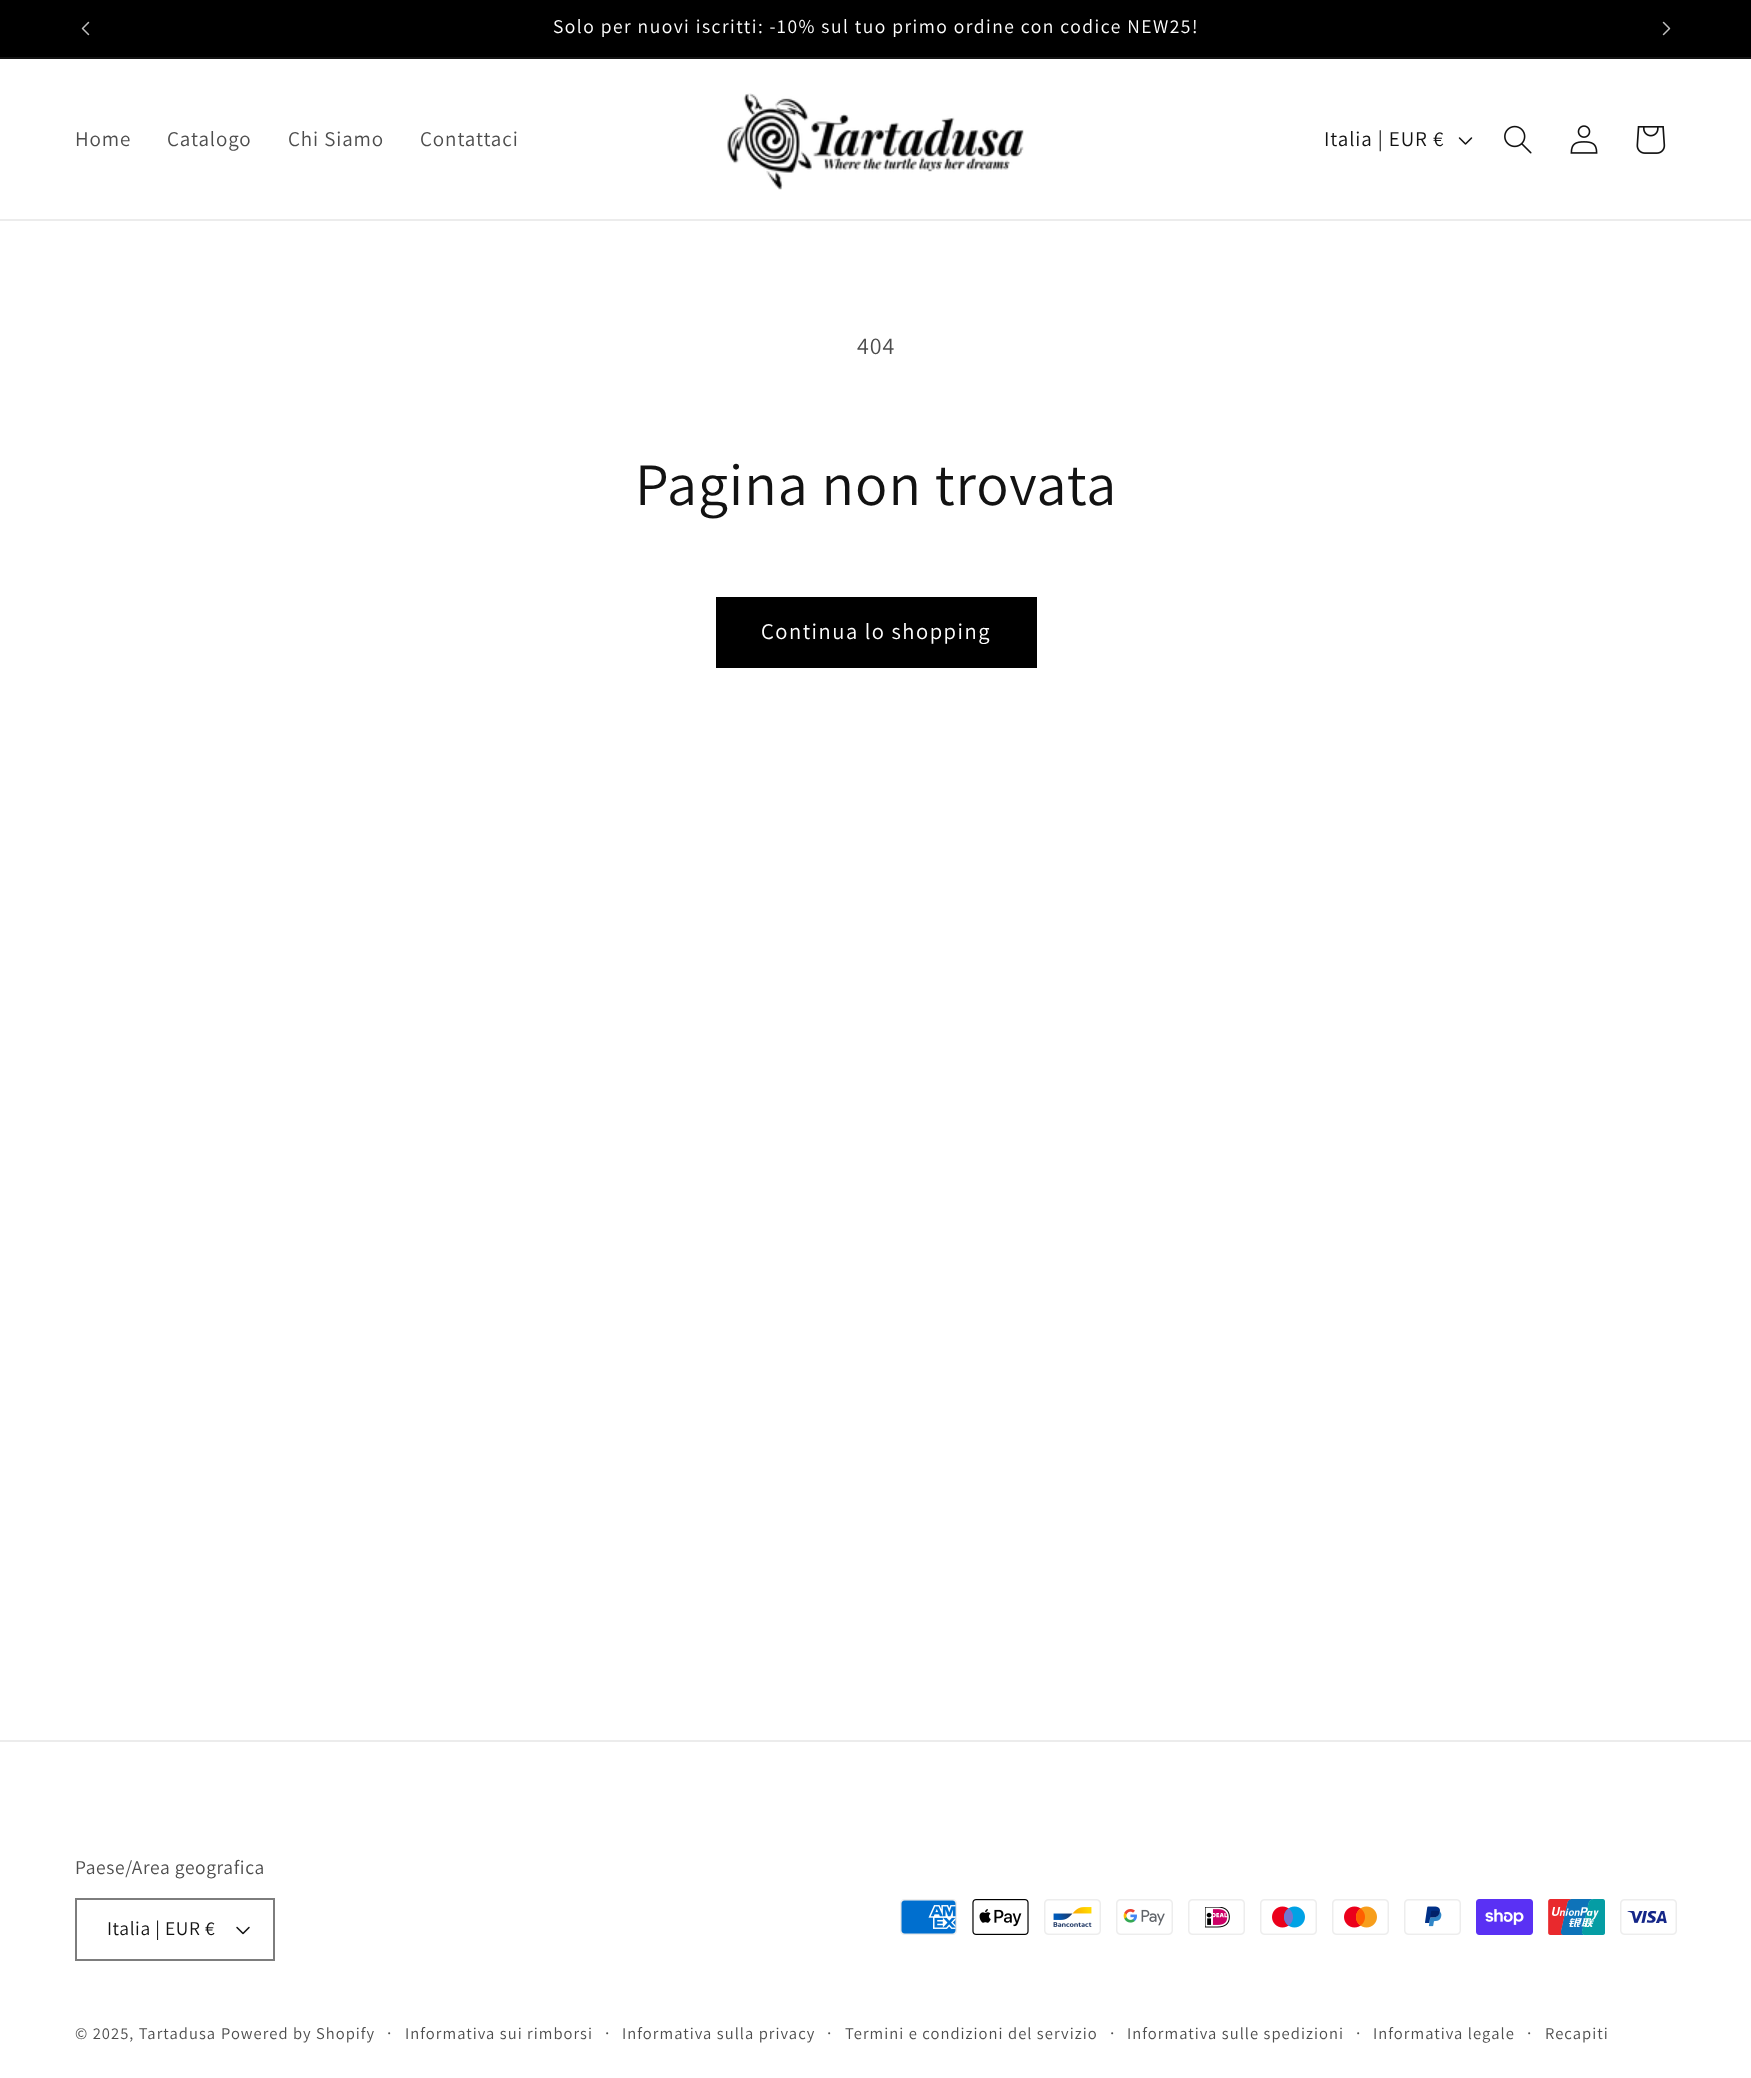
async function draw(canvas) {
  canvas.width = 1751
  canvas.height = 2078
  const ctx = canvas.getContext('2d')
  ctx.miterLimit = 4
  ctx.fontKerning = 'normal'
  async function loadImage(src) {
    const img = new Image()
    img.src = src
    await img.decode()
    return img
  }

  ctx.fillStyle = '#fff'
  ctx.fillRect(0, 0, 1751, 2078)
  ctx.fillStyle = '#000'
  ctx.fillRect(0, 0, 1751, 57)
  ctx.fillStyle = '#141414'
  ctx.fillRect(0, 57, 1751, 2)
  ctx.drawImage(await loadImage('image0.png'), 81, 21, 9, 15)
  ctx.letterSpacing = '1.5px'
  ctx.font = '19.5px Assistant'
  ctx.fillStyle = '#fff'
  ctx.fillText('Solo per nuovi iscritti: -10% sul tuo primo ordine con codice NEW25!', 553, 33)
  ctx.drawImage(await loadImage('image1.png'), 1662, 21, 9, 15)
  ctx.fillStyle = '#ececec'
  ctx.fillRect(0, 219, 1751, 2)
  ctx.letterSpacing = '0.9px'
  ctx.font = '21px Assistant'
  ctx.fillStyle = '#4d4d4d'
  ctx.fillText('Home', 75, 146)
  ctx.fillText('Catalogo', 167, 146)
  ctx.fillText('Chi Siamo', 288, 146)
  ctx.fillText('Contattaci', 420, 146)
  ctx.drawImage(await loadImage('image2.png'), 727, 93, 297, 97)
  ctx.fillStyle = '#121212'
  ctx.fillText('Italia | EUR €', 1324, 146)
  ctx.drawImage(await loadImage('image3.png'), 1458, 137, 15, 8)
  ctx.drawImage(await loadImage('image4.png'), 1504, 125, 28, 29)
  ctx.drawImage(await loadImage('image5.png'), 1570, 125, 28, 29)
  ctx.drawImage(await loadImage('image6.png'), 1636, 126, 30, 28)
  ctx.font = '24px Assistant'
  ctx.fillStyle = '#4d4d4d'
  ctx.fillText('404', 857, 354)
  ctx.font = '60px Assistant'
  ctx.fillStyle = '#121212'
  ctx.fillText('Pagina non trovata', 635, 505)
  ctx.fillStyle = '#000'
  ctx.fillRect(716, 597, 321, 71)
  ctx.letterSpacing = '1.5px'
  ctx.font = '22.5px Assistant'
  ctx.fillStyle = '#fff'
  ctx.fillText('Continua lo shopping', 761, 639)
  ctx.fillStyle = '#ececec'
  ctx.fillRect(0, 1740, 1751, 2)
  ctx.letterSpacing = '0.6px'
  ctx.font = '19.5px Assistant'
  ctx.fillStyle = '#4d4d4d'
  ctx.fillText('Paese/Area geografica', 75, 1874)
  ctx.drawImage(await loadImage('image7.png'), 236, 1926, 14, 9)
  ctx.strokeStyle = '#7d7d7d'
  ctx.lineWidth = 2
  ctx.strokeRect(76, 1899, 198, 61)
  ctx.fillStyle = '#121212'
  ctx.fillText('Italia | EUR €', 107, 1935)
  ctx.drawImage(await loadImage('image8.png'), 900, 1899, 57, 36)
  ctx.drawImage(await loadImage('image9.png'), 972, 1899, 57, 36)
  ctx.drawImage(await loadImage('image10.png'), 1044, 1899, 57, 36)
  ctx.drawImage(await loadImage('image11.png'), 1116, 1899, 57, 36)
  ctx.drawImage(await loadImage('image12.png'), 1188, 1899, 57, 36)
  ctx.drawImage(await loadImage('image13.png'), 1260, 1899, 57, 36)
  ctx.drawImage(await loadImage('image14.png'), 1332, 1899, 57, 36)
  ctx.drawImage(await loadImage('image15.png'), 1404, 1899, 57, 36)
  ctx.drawImage(await loadImage('image16.png'), 1476, 1899, 57, 36)
  ctx.drawImage(await loadImage('image17.png'), 1548, 1899, 57, 36)
  ctx.drawImage(await loadImage('image18.png'), 1620, 1899, 57, 36)
  ctx.letterSpacing = '1.05px'
  ctx.font = '16.5px Assistant'
  ctx.fillStyle = '#4d4d4d'
  ctx.fillText('© 2025, Tartadusa', 75, 2039)
  ctx.fillText('Powered by Shopify', 221, 2039)
  ctx.font = '18px Assistant'
  ctx.fillText('·', 387, 2039)
  ctx.font = '16.5px Assistant'
  ctx.fillText('Informativa sui rimborsi', 405, 2039)
  ctx.font = '18px Assistant'
  ctx.fillText('·', 605, 2039)
  ctx.font = '16.5px Assistant'
  ctx.fillText('Informativa sulla privacy', 622, 2039)
  ctx.font = '18px Assistant'
  ctx.fillText('·', 827, 2039)
  ctx.font = '16.5px Assistant'
  ctx.fillText('Termini e condizioni del servizio', 845, 2039)
  ctx.font = '18px Assistant'
  ctx.fillText('·', 1110, 2039)
  ctx.font = '16.5px Assistant'
  ctx.fillText('Informativa sulle spedizioni', 1127, 2039)
  ctx.font = '18px Assistant'
  ctx.fillText('·', 1356, 2039)
  ctx.font = '16.5px Assistant'
  ctx.fillText('Informativa legale', 1373, 2039)
  ctx.font = '18px Assistant'
  ctx.fillText('·', 1527, 2039)
  ctx.font = '16.5px Assistant'
  ctx.fillText('Recapiti', 1545, 2039)
}

draw(document.querySelector('canvas'))
